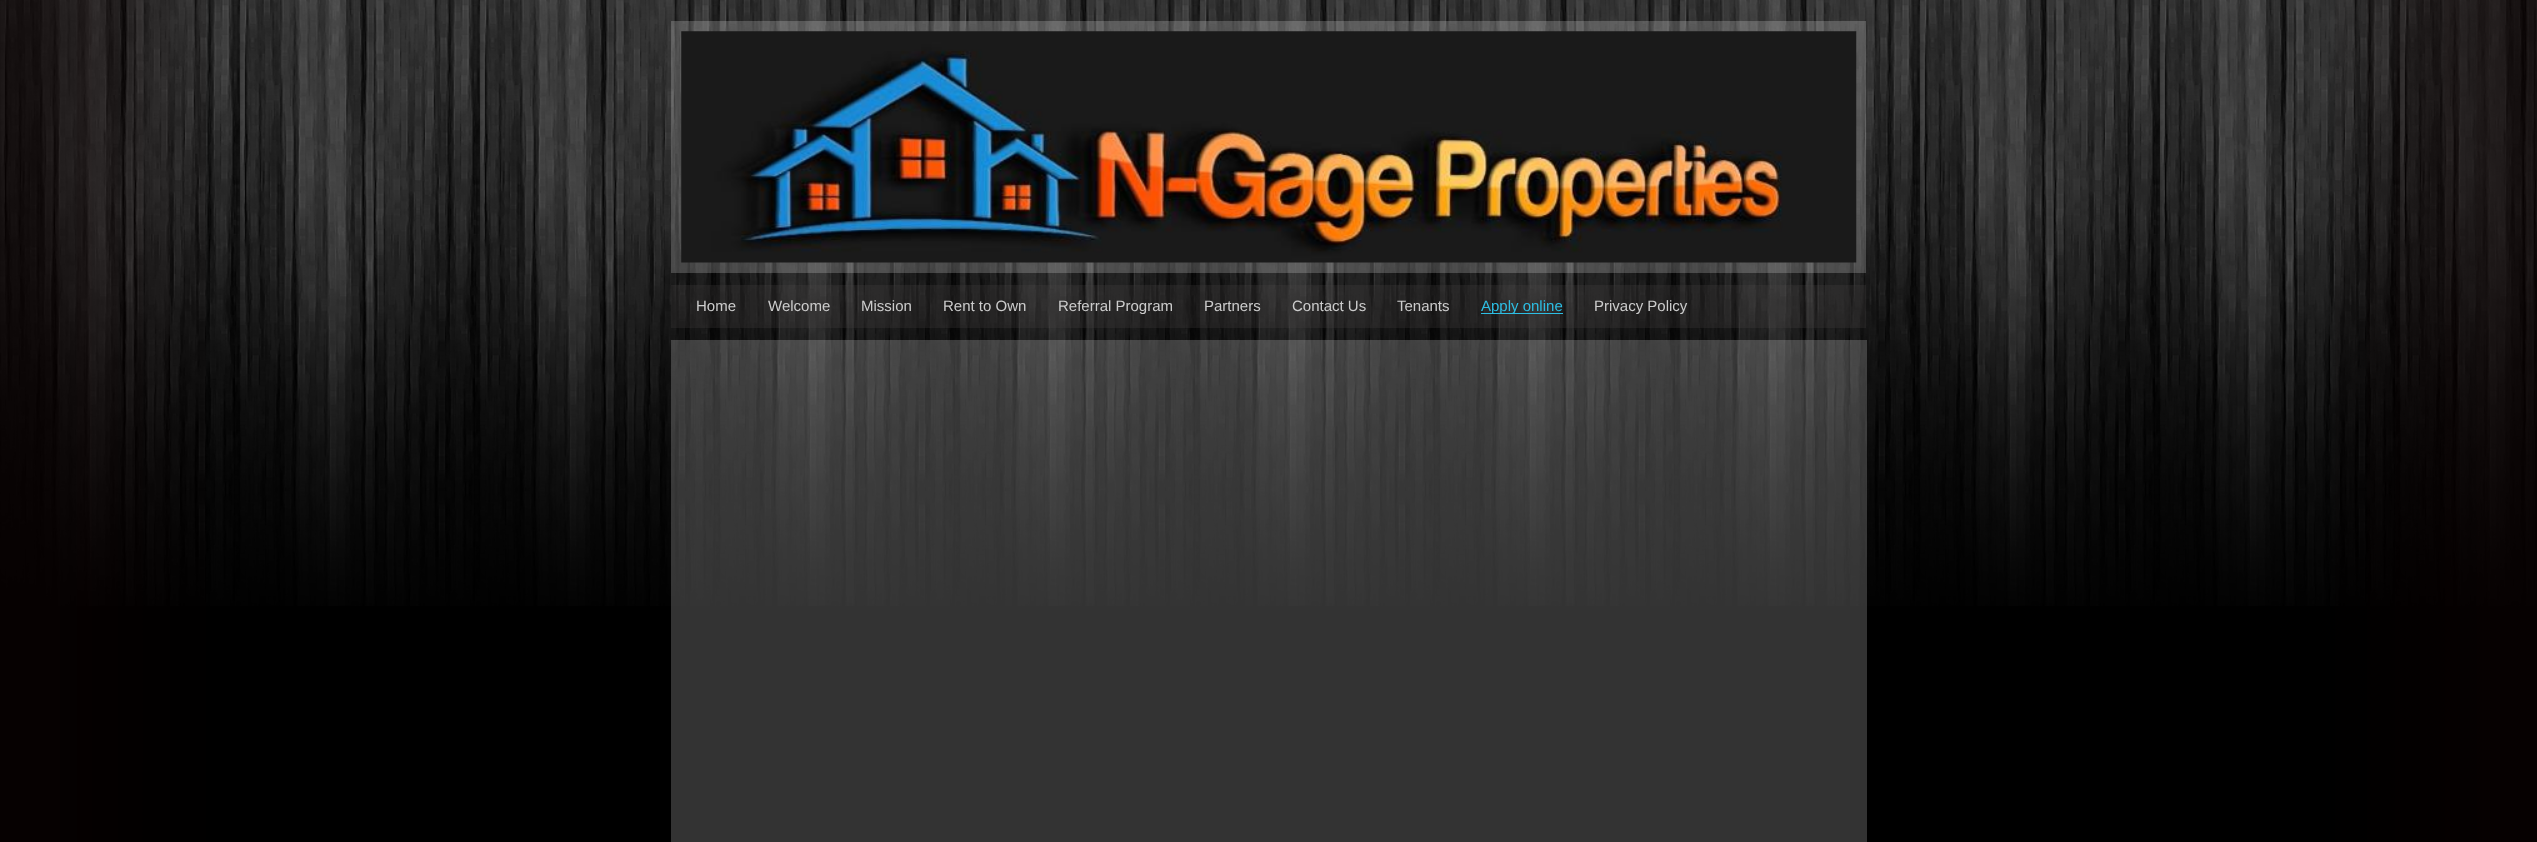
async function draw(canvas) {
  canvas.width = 2537
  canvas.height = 842
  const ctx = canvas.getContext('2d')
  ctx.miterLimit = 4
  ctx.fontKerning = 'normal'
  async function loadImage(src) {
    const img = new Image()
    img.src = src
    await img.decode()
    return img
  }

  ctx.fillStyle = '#000'
  ctx.fillRect(0, 0, 2537, 842)
  ctx.drawImage(await loadImage('image0.png'), 0, 0, 2537, 606)
  ctx.drawImage(await loadImage('image1.png'), 0, 0, 206, 842)
  ctx.fillStyle = '#ffffff33'
  ctx.fillRect(671, 21, 1195, 252)
  ctx.drawImage(await loadImage('image2.png'), 681, 31, 1176, 232)
  ctx.fillStyle = '#4e49493b'
  ctx.fillRect(671, 285, 1195, 43)
  ctx.font = '15px Liberation Sans'
  ctx.fillStyle = '#ccc'
  ctx.fillText('Home', 696, 311)
  ctx.fillText('Welcome', 768, 311)
  ctx.fillText('Mission', 861, 311)
  ctx.fillText('Rent to Own', 943, 311)
  ctx.fillText('Referral Program', 1058, 311)
  ctx.fillText('Partners', 1204, 311)
  ctx.fillText('Contact Us', 1292, 311)
  ctx.fillText('Tenants', 1397, 311)
  ctx.fillStyle = '#2dbee3'
  ctx.fillRect(1481, 313, 82, 1)
  ctx.fillText('Apply online', 1481, 311)
  ctx.fillStyle = '#ccc'
  ctx.fillText('Privacy Policy', 1594, 311)
  ctx.fillStyle = '#ffffff33'
  ctx.fillRect(671, 340, 1196, 502)
  ctx.drawImage(await loadImage('image3.png'), 2335, 0, 202, 842)
}

draw(document.querySelector('canvas'))
